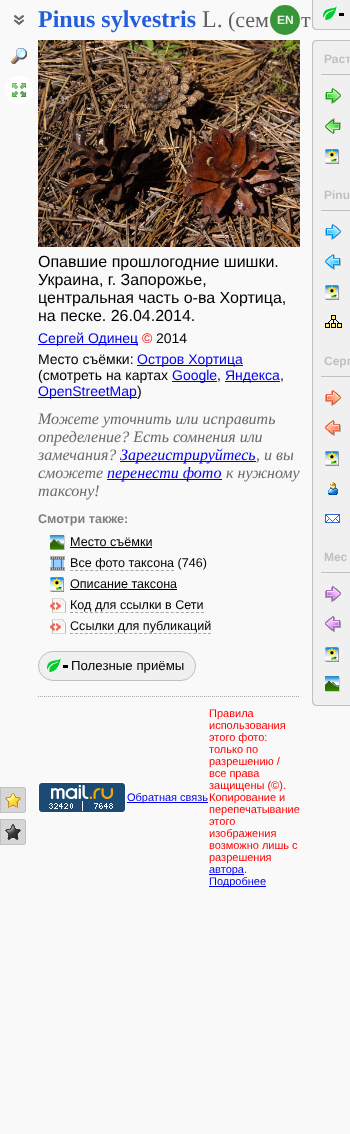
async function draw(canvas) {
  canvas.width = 350
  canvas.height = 1134
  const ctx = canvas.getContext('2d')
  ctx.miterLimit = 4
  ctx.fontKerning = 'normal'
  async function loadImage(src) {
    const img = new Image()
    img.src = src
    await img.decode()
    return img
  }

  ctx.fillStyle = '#f9f9f9'
  ctx.fillRect(0, 0, 350, 1134)
  ctx.drawImage(await loadImage('image0.png'), 14, 15, 10, 10)
  ctx.font = 'bold 24px Liberation Serif'
  ctx.fillStyle = '#245edc'
  ctx.fillText('Pinus sylvestris', 38, 27)
  ctx.font = '24px Liberation Serif'
  ctx.fillStyle = '#606060'
  ctx.fillText('L.', 202, 27)
  ctx.font = '22px Liberation Serif'
  ctx.fillText('(сем', 228, 27)
  ctx.fillText('т', 301, 27)
  ctx.fillStyle = '#228b22e6'
  ctx.beginPath()
  ctx.arc(285, 20, 15, 0, 2 * Math.PI)
  ctx.fill()
  ctx.font = 'bold 12px Liberation Sans'
  ctx.fillStyle = '#ebf4eb'
  ctx.fillText('EN', 277, 24)
  ctx.drawImage(await loadImage('image1.png'), 11, 48, 16, 16)
  ctx.fillStyle = '#fff'
  ctx.beginPath()
  ctx.arc(19, 90, 14, 0, 2 * Math.PI)
  ctx.fill()
  ctx.drawImage(await loadImage('image2.png'), 12, 83, 14, 14)
  ctx.fillStyle = '#d6d6d6'
  ctx.beginPath()
  ctx.roundRect(0, 787, 26, 26, [0, 3, 3, 0])
  ctx.fill()
  ctx.drawImage(await loadImage('image3.png'), 5, 793, 16, 15)
  ctx.beginPath()
  ctx.roundRect(0.5, 787.5, 25, 25, [0, 2.5, 2.5, 0])
  ctx.strokeStyle = '#c0c0c0'
  ctx.stroke()
  ctx.beginPath()
  ctx.roundRect(0, 819, 26, 26, [0, 3, 3, 0])
  ctx.fill()
  ctx.drawImage(await loadImage('image4.png'), 5, 824, 16, 16)
  ctx.beginPath()
  ctx.roundRect(0.5, 819.5, 25, 25, [0, 2.5, 2.5, 0])
  ctx.stroke()
  ctx.drawImage(await loadImage('image5.png'), 38, 40, 262, 207)
  ctx.font = '16px Liberation Sans'
  ctx.fillStyle = '#000'
  ctx.fillText('Опавшие прошлогодние шишки.', 38, 267)
  ctx.fillText('Украина, г. Запорожье,', 38, 285)
  ctx.fillText('центральная часть о-ва Хортица,', 38, 303)
  ctx.fillText('на песке. 26.04.2014.', 38, 321)
  ctx.fillStyle = '#00e'
  ctx.fillRect(38, 344, 100, 1)
  ctx.font = '14px Liberation Sans'
  ctx.fillText('Сергей Одинец', 38, 343)
  ctx.fillStyle = '#f00'
  ctx.fillText('©', 142, 343)
  ctx.fillStyle = '#000'
  ctx.fillText('2014', 156, 343)
  ctx.fillText('Место съёмки:', 38, 364)
  ctx.fillStyle = '#00e'
  ctx.fillRect(137, 365, 106, 1)
  ctx.fillText('Остров Хортица', 137, 364)
  ctx.fillStyle = '#000'
  ctx.fillText('(смотреть на картах', 38, 380)
  ctx.fillStyle = '#00e'
  ctx.fillRect(172, 381, 45, 1)
  ctx.fillText('Google', 172, 380)
  ctx.fillStyle = '#000'
  ctx.fillText(',', 217, 380)
  ctx.fillStyle = '#00e'
  ctx.fillRect(225, 381, 55, 1)
  ctx.fillText('Яндекса', 225, 380)
  ctx.fillStyle = '#000'
  ctx.fillText(',', 280, 380)
  ctx.fillStyle = '#00e'
  ctx.fillRect(38, 397, 99, 1)
  ctx.fillText('OpenStreetMap', 38, 396)
  ctx.fillStyle = '#000'
  ctx.fillText(')', 137, 396)
  ctx.font = 'italic 16px Liberation Serif'
  ctx.fillStyle = '#696969'
  ctx.fillText('Можете уточнить или исправить', 38, 424)
  ctx.fillText('определение? Есть сомнения или', 38, 442)
  ctx.fillText('замечания?', 38, 460)
  ctx.fillStyle = '#00e'
  ctx.fillRect(120, 461, 136, 1)
  ctx.fillText('Зарегистрируйтесь', 120, 460)
  ctx.fillStyle = '#696969'
  ctx.fillText(', и вы', 256, 460)
  ctx.fillText('сможете', 38, 478)
  ctx.fillStyle = '#00e'
  ctx.fillRect(107, 479, 115, 1)
  ctx.fillText('перенести фото', 107, 478)
  ctx.fillStyle = '#696969'
  ctx.fillText('к нужному', 226, 478)
  ctx.fillText('таксону!', 38, 496)
  ctx.font = 'bold 12.6px Liberation Sans'
  ctx.fillStyle = '#808080'
  ctx.fillText('Смотри также:', 38, 523)
  ctx.drawImage(await loadImage('image6.png'), 50, 535, 15, 15)
  ctx.font = '12.6px Liberation Sans'
  ctx.fillStyle = '#000'
  ctx.fillText('Место съёмки', 70, 546)
  ctx.fillRect(70, 547, 82, 1)
  ctx.drawImage(await loadImage('image7.png'), 50, 556, 15, 15)
  ctx.fillText('Все фото таксона (746)', 70, 567)
  ctx.beginPath()
  ctx.moveTo(70, 570.5)
  ctx.lineTo(174, 570.5)
  ctx.strokeStyle = '#a9a9a9'
  ctx.setLineDash([3, 2.05])
  ctx.stroke()
  ctx.drawImage(await loadImage('image8.png'), 50, 577, 14, 15)
  ctx.fillText('Описание таксона', 70, 588)
  ctx.fillRect(70, 589, 107, 1)
  ctx.drawImage(await loadImage('image9.png'), 50, 598, 16, 15)
  ctx.fillText('Код для ссылки в Сети', 70, 609)
  ctx.beginPath()
  ctx.moveTo(70, 612.5)
  ctx.lineTo(204, 612.5)
  ctx.setLineDash([3, 2.04])
  ctx.stroke()
  ctx.drawImage(await loadImage('image9.png'), 50, 619, 16, 15)
  ctx.fillText('Ссылки для публикаций', 70, 630)
  ctx.beginPath()
  ctx.moveTo(70, 633.5)
  ctx.lineTo(211, 633.5)
  ctx.setLineDash([3, 1.93])
  ctx.stroke()
  ctx.fillStyle = '#f0f0f0'
  ctx.beginPath()
  ctx.roundRect(38, 651, 158, 30, 15)
  ctx.fill()
  ctx.fillStyle = '#000'
  ctx.fillRect(63, 665, 5, 3)
  ctx.beginPath()
  ctx.roundRect(38.5, 651.5, 157, 29, 14.5)
  ctx.strokeStyle = '#c0c0c0'
  ctx.setLineDash([])
  ctx.stroke()
  ctx.drawImage(await loadImage('image10.png'), 47, 658, 14, 14)
  ctx.font = '13.25px Liberation Sans'
  ctx.fillText('Полезные приёмы', 71, 670)
  ctx.fillStyle = '#f0f0f0'
  ctx.beginPath()
  ctx.roundRect(312, 0, 38, 30, [0, 0, 0, 5])
  ctx.fill()
  ctx.drawImage(await loadImage('image10.png'), 323, 6, 14, 14)
  ctx.fillStyle = '#c0c0c0'
  ctx.beginPath()
  ctx.moveTo(312, 0)
  ctx.lineTo(350, 0)
  ctx.lineTo(350, 30)
  ctx.lineTo(317, 30)
  ctx.bezierCurveTo(314, 30, 312, 28, 312, 25)
  ctx.closePath()
  ctx.moveTo(313, 0)
  ctx.lineTo(350, 0)
  ctx.lineTo(350, 29)
  ctx.lineTo(317, 29)
  ctx.bezierCurveTo(315, 29, 313, 27, 313, 25)
  ctx.closePath()
  ctx.fill('evenodd')
  ctx.fillStyle = '#000'
  ctx.fillRect(339, 13, 5, 3)
  ctx.fillStyle = '#f0f0f0'
  ctx.beginPath()
  ctx.moveTo(317, 40)
  ctx.lineTo(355, 40)
  ctx.lineTo(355, 706)
  ctx.lineTo(317, 706)
  ctx.bezierCurveTo(314, 706, 312, 704, 312, 701)
  ctx.lineTo(312, 45)
  ctx.bezierCurveTo(312, 42, 314, 40, 317, 40)
  ctx.closePath()
  ctx.fill()
  ctx.fillStyle = '#c0c0c0'
  ctx.beginPath()
  ctx.moveTo(317, 40)
  ctx.lineTo(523, 40)
  ctx.lineTo(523, 706)
  ctx.lineTo(317, 706)
  ctx.bezierCurveTo(314, 706, 312, 704, 312, 701)
  ctx.lineTo(312, 45)
  ctx.bezierCurveTo(312, 42, 314, 40, 317, 40)
  ctx.closePath()
  ctx.moveTo(317, 41)
  ctx.lineTo(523, 41)
  ctx.lineTo(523, 705)
  ctx.lineTo(317, 705)
  ctx.bezierCurveTo(315, 705, 313, 703, 313, 701)
  ctx.lineTo(313, 45)
  ctx.bezierCurveTo(313, 43, 315, 41, 317, 41)
  ctx.closePath()
  ctx.fill('evenodd')
  ctx.fillRect(321, 74, 29, 1)
  ctx.font = 'bold 12px Liberation Sans'
  ctx.fillText('Раст', 324, 63)
  ctx.drawImage(await loadImage('image11.png'), 325, 88, 16, 16)
  ctx.drawImage(await loadImage('image12.png'), 325, 118, 16, 16)
  ctx.drawImage(await loadImage('image8.png'), 325, 149, 14, 15)
  ctx.fillRect(321, 210, 29, 1)
  ctx.fillText('Pinu', 324, 199)
  ctx.drawImage(await loadImage('image13.png'), 325, 224, 16, 16)
  ctx.drawImage(await loadImage('image14.png'), 325, 254, 16, 16)
  ctx.drawImage(await loadImage('image8.png'), 325, 285, 14, 15)
  ctx.drawImage(await loadImage('image15.png'), 325, 315, 17, 13)
  ctx.fillRect(321, 376, 29, 1)
  ctx.fillText('Серг', 324, 365)
  ctx.drawImage(await loadImage('image16.png'), 325, 390, 16, 16)
  ctx.drawImage(await loadImage('image17.png'), 325, 420, 16, 16)
  ctx.drawImage(await loadImage('image8.png'), 325, 451, 14, 15)
  ctx.drawImage(await loadImage('image18.png'), 328, 482, 10, 13)
  ctx.drawImage(await loadImage('image19.png'), 325, 514, 15, 9)
  ctx.fillRect(321, 572, 29, 1)
  ctx.fillText('Мес', 324, 561)
  ctx.drawImage(await loadImage('image20.png'), 325, 586, 16, 16)
  ctx.drawImage(await loadImage('image21.png'), 325, 616, 16, 16)
  ctx.drawImage(await loadImage('image8.png'), 325, 647, 14, 15)
  ctx.drawImage(await loadImage('image22.png'), 325, 676, 15, 16)
  ctx.beginPath()
  ctx.moveTo(38, 696.5)
  ctx.lineTo(300, 696.5)
  ctx.strokeStyle = '#a6a6a6'
  ctx.setLineDash([1, 1])
  ctx.stroke()
  ctx.drawImage(await loadImage('image23.png'), 38, 782, 88, 31)
  ctx.fillStyle = '#00e'
  ctx.fillRect(127, 802, 81, 1)
  ctx.font = '11px Liberation Sans'
  ctx.fillText('Обратная связь', 127, 801)
  ctx.fillStyle = '#f00'
  ctx.fillText('Правила', 209, 717)
  ctx.fillText('использования', 209, 729)
  ctx.fillText('этого фото:', 209, 741)
  ctx.fillText('только по', 209, 753)
  ctx.fillText('разрешению /', 209, 765)
  ctx.fillText('все права', 209, 777)
  ctx.fillText('защищены (©).', 209, 789)
  ctx.fillText('Копирование и', 209, 801)
  ctx.fillText('перепечатывание', 209, 813)
  ctx.fillText('этого', 209, 825)
  ctx.fillText('изображения', 209, 837)
  ctx.fillText('возможно лишь с', 209, 849)
  ctx.fillText('разрешения', 209, 861)
  ctx.fillStyle = '#00e'
  ctx.fillRect(209, 874, 35, 1)
  ctx.fillText('автора', 209, 873)
  ctx.fillStyle = '#f00'
  ctx.fillText('.', 244, 873)
  ctx.fillStyle = '#00e'
  ctx.fillRect(209, 886, 57, 1)
  ctx.fillText('Подробнее', 209, 885)
}

draw(document.querySelector('canvas'))
